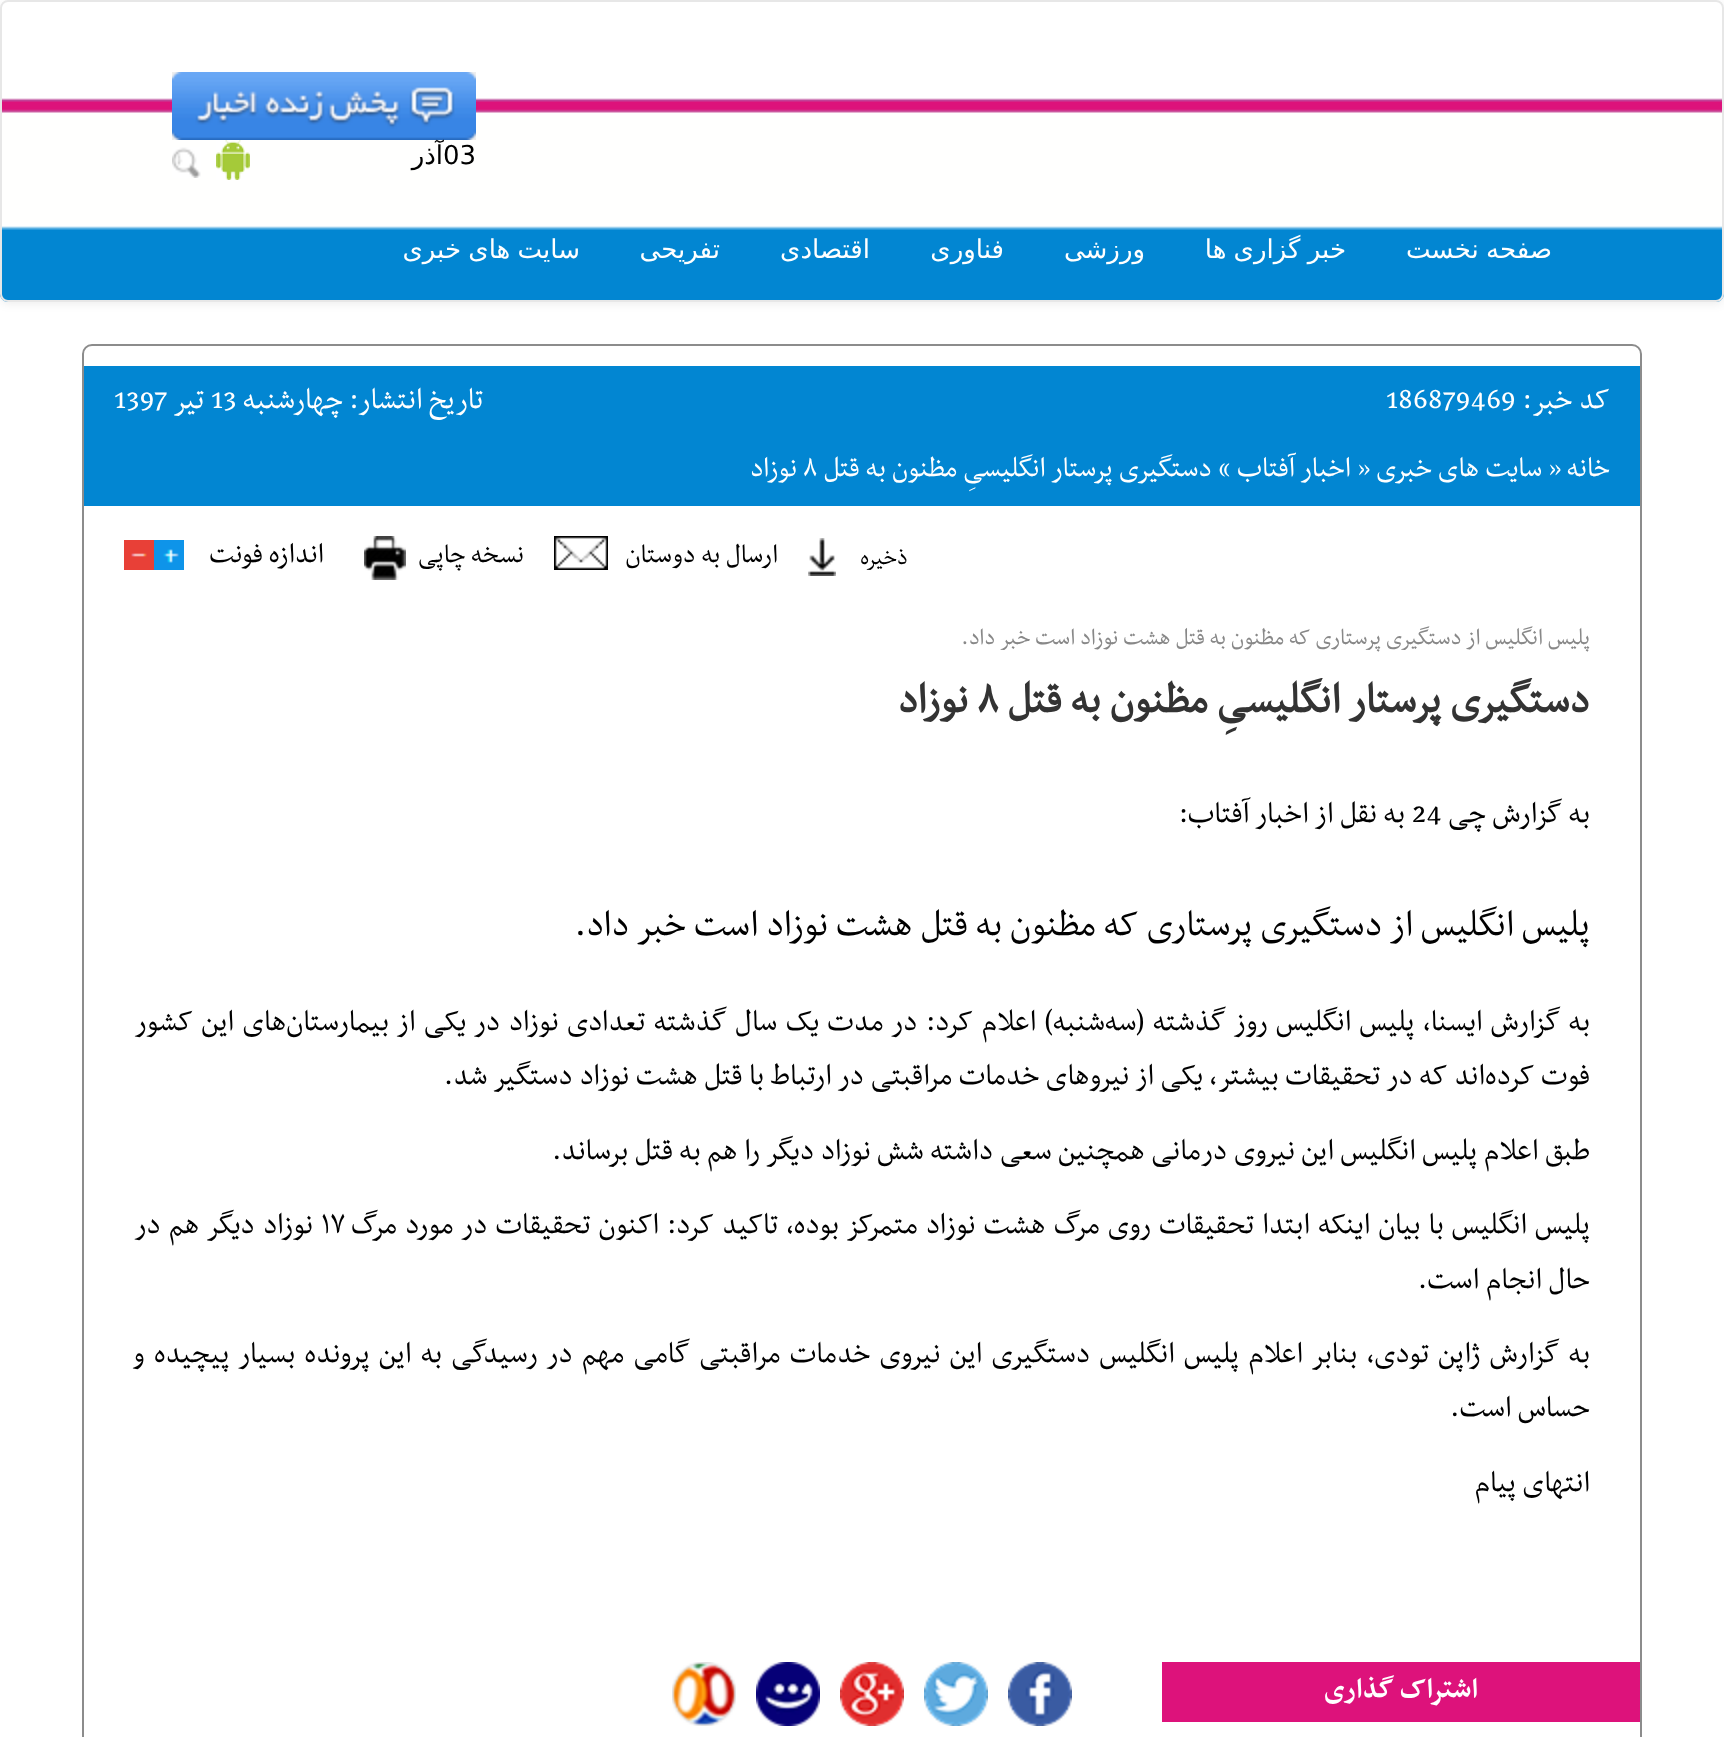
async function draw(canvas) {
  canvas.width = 1724
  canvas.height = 1737
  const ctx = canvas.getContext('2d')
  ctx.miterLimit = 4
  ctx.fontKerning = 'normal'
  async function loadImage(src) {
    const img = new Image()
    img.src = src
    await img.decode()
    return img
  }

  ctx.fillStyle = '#fff'
  ctx.fillRect(0, 0, 1724, 1737)
  ctx.save()
  ctx.beginPath()
  ctx.moveTo(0, 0)
  ctx.lineTo(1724, 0)
  ctx.lineTo(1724, 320)
  ctx.lineTo(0, 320)
  ctx.closePath()
  ctx.moveTo(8, 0)
  ctx.lineTo(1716, 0)
  ctx.bezierCurveTo(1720.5, 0, 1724, 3.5, 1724, 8)
  ctx.lineTo(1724, 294)
  ctx.bezierCurveTo(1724, 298.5, 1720.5, 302, 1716, 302)
  ctx.lineTo(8, 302)
  ctx.bezierCurveTo(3.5, 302, 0, 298.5, 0, 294)
  ctx.lineTo(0, 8)
  ctx.bezierCurveTo(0, 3.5, 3.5, 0, 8, 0)
  ctx.closePath()
  ctx.clip('evenodd')
  ctx.fillStyle = '#00000012'
  ctx.filter = 'blur(5px)'
  ctx.beginPath()
  ctx.roundRect(0, 2, 1724, 302, 8)
  ctx.fill()
  ctx.filter = 'none'
  ctx.restore()
  ctx.drawImage(await loadImage('image0.png'), 0, 98, 1724, 204)
  ctx.beginPath()
  ctx.roundRect(1, 1, 1722, 300, 7)
  ctx.strokeStyle = '#e7e7e7'
  ctx.lineWidth = 2
  ctx.stroke()
  ctx.drawImage(await loadImage('image1.png'), 172, 72, 304, 68)
  ctx.direction = 'rtl'
  ctx.font = '26px DejaVu Sans'
  ctx.fillStyle = '#000'
  ctx.fillText('آذر', 443, 164)
  ctx.direction = 'ltr'
  ctx.fillText('03', 443, 164)
  ctx.drawImage(await loadImage('image2.png'), 216, 140, 34, 40)
  ctx.drawImage(await loadImage('image3.png'), 172, 147, 29, 31)
  ctx.wordSpacing = '-1px'
  ctx.direction = 'rtl'
  ctx.fillStyle = '#fff'
  ctx.fillText('صفحه نخست', 1552, 258)
  ctx.fillText('خبر گزاری ها', 1346, 258)
  ctx.wordSpacing = '0px'
  ctx.fillText('ورزشی', 1145, 258)
  ctx.fillText('فناوری', 1004, 258)
  ctx.fillText('اقتصادی', 870, 258)
  ctx.fillText('تفریحی', 720, 258)
  ctx.wordSpacing = '-1px'
  ctx.fillText('سایت های خبری', 580, 258)
  ctx.beginPath()
  ctx.roundRect(83, 345, 1558, 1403, 9)
  ctx.strokeStyle = '#8c8c8c'
  ctx.stroke()
  ctx.fillStyle = '#0286d2'
  ctx.fillRect(84, 366, 1556, 140)
  ctx.wordSpacing = '0px'
  ctx.font = '34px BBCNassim'
  ctx.fillStyle = '#fff'
  ctx.fillText('کد خبر:', 1610, 408)
  ctx.direction = 'ltr'
  ctx.fillText('186879469', 1386, 408)
  ctx.direction = 'rtl'
  ctx.fillText('تاریخ انتشار:', 483, 408)
  ctx.fillText('چهارشنبه', 343, 408)
  ctx.direction = 'ltr'
  ctx.fillText('13', 211, 408)
  ctx.direction = 'rtl'
  ctx.fillText('تير', 204, 408)
  ctx.direction = 'ltr'
  ctx.fillText('1397', 114, 408)
  ctx.direction = 'rtl'
  ctx.font = '32px BBCNassim'
  ctx.fillText('خانه', 1610, 476)
  ctx.direction = 'ltr'
  ctx.fillText('»', 1548, 476)
  ctx.direction = 'rtl'
  ctx.fillText('سایت های خبری', 1542, 476)
  ctx.direction = 'ltr'
  ctx.fillText('»', 1357, 476)
  ctx.direction = 'rtl'
  ctx.fillText('اخبار آفتاب', 1351, 476)
  ctx.fillText('» دستگیری پرستار انگلیسیِ مظنون به قتل', 1231, 476)
  ctx.direction = 'ltr'
  ctx.fillText('۸', 803, 476)
  ctx.direction = 'rtl'
  ctx.fillText('نوزاد', 797, 476)
  ctx.drawImage(await loadImage('image4.png'), 808, 538, 28, 38)
  ctx.font = '26px BBCNassim'
  ctx.fillStyle = '#000'
  ctx.fillText('ذخیره', 908, 564)
  ctx.drawImage(await loadImage('image5.png'), 554, 536, 54, 34)
  ctx.font = '30px BBCNassim'
  ctx.fillText('ارسال به دوستان', 778, 562)
  ctx.drawImage(await loadImage('image6.png'), 364, 536, 42, 44)
  ctx.fillText('نسخه چاپی', 524, 562)
  ctx.font = '32px BBCNassim'
  ctx.fillText('اندازه فونت', 324, 562)
  ctx.drawImage(await loadImage('image7.png'), 154, 540, 30, 30)
  ctx.drawImage(await loadImage('image8.png'), 124, 540, 30, 30)
  ctx.font = '26px BBCNassim'
  ctx.fillStyle = '#888'
  ctx.fillText('پلیس انگلیس از دستگیری پرستاری که مظنون به قتل هشت نوزاد است خبر داد.', 1590, 644)
  ctx.font = 'bold 48px BBCNassim'
  ctx.fillStyle = '#333'
  ctx.fillText('دستگیری پرستار انگلیسیِ مظنون به قتل', 1590, 712)
  ctx.direction = 'ltr'
  ctx.fillText('۸', 977, 712)
  ctx.direction = 'rtl'
  ctx.fillText('نوزاد', 968, 712)
  ctx.font = '34px BBCNassim'
  ctx.fillStyle = '#000'
  ctx.fillText('به گزارش چی', 1590, 822)
  ctx.direction = 'ltr'
  ctx.fillText('24', 1412, 822)
  ctx.direction = 'rtl'
  ctx.fillText('به نقل از اخبار آفتاب:', 1405, 822)
  ctx.font = '42px BBCNassim'
  ctx.fillText('پلیس انگلیس از دستگیری پرستاری که مظنون به قتل هشت نوزاد است خبر داد.', 1590, 935)
  ctx.wordSpacing = '1.8px'
  ctx.font = '34px BBCNassim'
  ctx.fillText('به گزارش ایسنا، پلیس انگلیس روز گذشته (سه‌شنبه) اعلام کرد: در مدت یک سال گذشته تعدادی نوزاد در یکی از بیمارستان‌های این کشور', 1590, 1030)
  ctx.wordSpacing = '0px'
  ctx.fillText('فوت کرده‌اند که در تحقیقات بیشتر، یکی از نیروهای خدمات مراقبتی در ارتباط با قتل هشت نوزاد دستگیر شد.', 1590, 1084)
  ctx.fillText('طبق اعلام پلیس انگلیس این نیروی درمانی همچنین سعی داشته شش نوزاد دیگر را هم به قتل برساند.', 1590, 1159)
  ctx.wordSpacing = '1.5px'
  ctx.fillText('پلیس انگلیس با بیان اینکه ابتدا تحقیقات روی مرگ هشت نوزاد متمرکز بوده، تاکید کرد: اکنون تحقیقات در مورد مرگ', 1590, 1233)
  ctx.wordSpacing = '0px'
  ctx.direction = 'ltr'
  ctx.fillText('۱۷', 321, 1233)
  ctx.wordSpacing = '1.5px'
  ctx.direction = 'rtl'
  ctx.fillText('نوزاد دیگر هم در', 313, 1233)
  ctx.wordSpacing = '0px'
  ctx.fillText('حال انجام است.', 1590, 1288)
  ctx.wordSpacing = '2.7px'
  ctx.fillText('به گزارش ژاپن تودی، بنابر اعلام پلیس انگلیس دستگیری این نیروی خدمات مراقبتی گامی مهم در رسیدگی به این پرونده بسیار پیچیده و', 1590, 1362)
  ctx.wordSpacing = '0px'
  ctx.fillText('حساس است.', 1590, 1416)
  ctx.fillText('انتهای پیام', 1590, 1491)
  ctx.fillStyle = '#dd127b'
  ctx.fillRect(1162, 1662, 478, 60)
  ctx.font = 'bold 32px "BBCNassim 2"'
  ctx.fillStyle = '#fff'
  ctx.fillText('اشتراک گذاری', 1478, 1697)
  ctx.drawImage(await loadImage('image9.png'), 1008, 1662, 64, 64)
  ctx.drawImage(await loadImage('image10.png'), 924, 1662, 64, 64)
  ctx.drawImage(await loadImage('image11.png'), 840, 1662, 64, 64)
  ctx.drawImage(await loadImage('image12.png'), 756, 1662, 64, 64)
  ctx.drawImage(await loadImage('image13.png'), 672, 1662, 64, 64)
}

draw(document.querySelector('canvas'))
